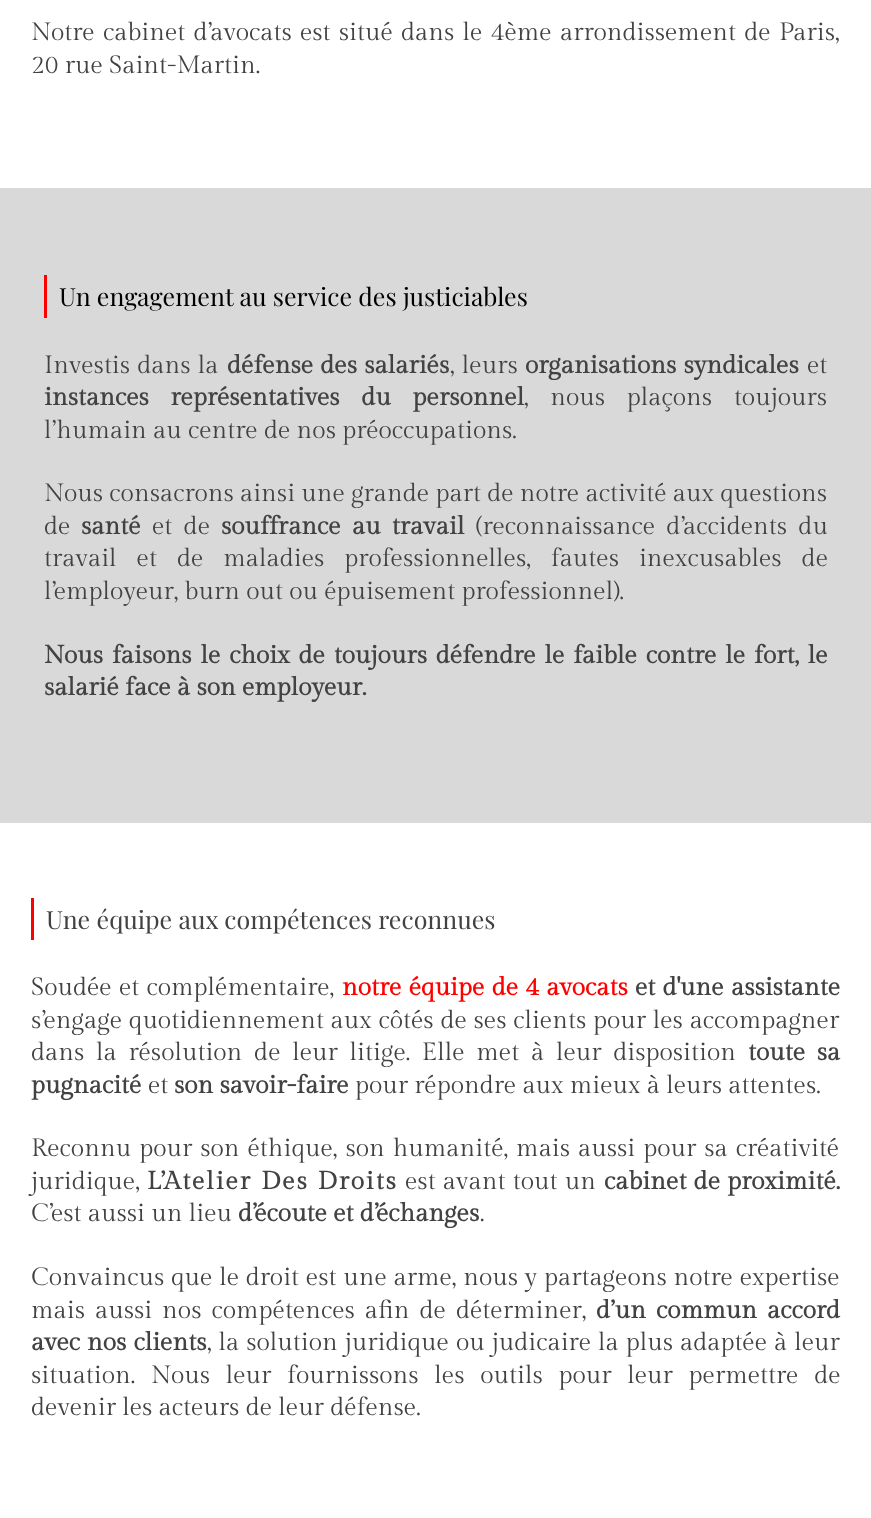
async function draw(canvas) {
  canvas.width = 871
  canvas.height = 1518
  const ctx = canvas.getContext('2d')
  ctx.miterLimit = 4
  ctx.fontKerning = 'normal'

  ctx.fillStyle = '#fff'
  ctx.fillRect(0, 0, 871, 1518)
  ctx.wordSpacing = '2px'
  ctx.font = '25px Gilda Display'
  ctx.fillStyle = '#434242'
  ctx.fillText('Notre cabinet d’avocats est situé dans le 4ème arrondissement de Paris,', 31, 40)
  ctx.wordSpacing = '0px'
  ctx.fillText('20 rue Saint-Martin.', 31, 73)
  ctx.fillStyle = '#d9d9d9'
  ctx.fillRect(0, 188, 871, 635)
  ctx.fillStyle = '#f00'
  ctx.fillRect(44, 275, 3, 43)
  ctx.font = '25px Playfair Display'
  ctx.fillStyle = '#000'
  ctx.fillText('Un engagement au service des justiciables', 59, 306)
  ctx.wordSpacing = '1px'
  ctx.font = '25px Gilda Display'
  ctx.fillStyle = '#434242'
  ctx.fillText('Investis dans la', 44, 373)
  ctx.font = 'bold 25px Gilda Display'
  ctx.fillText('défense des salariés', 227, 373)
  ctx.font = '25px Gilda Display'
  ctx.fillText(', leurs', 450, 373)
  ctx.font = 'bold 25px Gilda Display'
  ctx.fillText('organisations syndicales', 525, 373)
  ctx.wordSpacing = '0px'
  ctx.font = '25px Gilda Display'
  ctx.fillText('et', 807, 373)
  ctx.wordSpacing = '15.5px'
  ctx.font = 'bold 25px Gilda Display'
  ctx.fillText('instances représentatives du personnel', 44, 405)
  ctx.font = '25px Gilda Display'
  ctx.fillText(', nous plaçons toujours', 524, 405)
  ctx.wordSpacing = '0px'
  ctx.fillText('l’humain au centre de nos préoccupations.', 44, 438)
  ctx.fillText('Nous consacrons ainsi une grande part de notre activité aux questions', 44, 501)
  ctx.fillText('de', 44, 534)
  ctx.font = 'bold 25px Gilda Display'
  ctx.fillText('santé', 81, 534)
  ctx.wordSpacing = '5px'
  ctx.font = '25px Gilda Display'
  ctx.fillText('et de', 152, 534)
  ctx.font = 'bold 25px Gilda Display'
  ctx.fillText('souffrance au travail', 221, 534)
  ctx.font = '25px Gilda Display'
  ctx.fillText('(reconnaissance d’accidents du', 476, 534)
  ctx.wordSpacing = '13.75px'
  ctx.fillText('travail et de maladies professionnelles, fautes inexcusables de', 44, 566)
  ctx.wordSpacing = '0px'
  ctx.fillText('l’employeur, burn out ou épuisement professionnel).', 44, 599)
  ctx.wordSpacing = '2.6px'
  ctx.font = 'bold 25px Gilda Display'
  ctx.fillText('Nous faisons le choix de toujours défendre le faible contre le fort, le', 44, 663)
  ctx.wordSpacing = '0px'
  ctx.fillText('salarié face à son employeur.', 44, 695)
  ctx.fillStyle = '#f00'
  ctx.fillRect(31, 898, 3, 42)
  ctx.font = '25px Playfair Display'
  ctx.fillStyle = '#434242'
  ctx.fillText('Une équipe aux compétences reconnues', 46, 929)
  ctx.wordSpacing = '1px'
  ctx.font = '25px Gilda Display'
  ctx.fillText('Soudée et complémentaire,', 31, 995)
  ctx.font = 'bold 25px Gilda Display'
  ctx.fillStyle = '#f00'
  ctx.fillText('notre équipe de 4 avocats', 342, 995)
  ctx.fillStyle = '#434242'
  ctx.fillText('et d\'une assistante', 635, 995)
  ctx.wordSpacing = '0.5px'
  ctx.font = '25px Gilda Display'
  ctx.fillText('s’engage quotidiennement aux côtés de ses clients pour les accompagner', 31, 1028)
  ctx.wordSpacing = '5.5px'
  ctx.fillText('dans la résolution de leur litige. Elle met à leur disposition', 31, 1060)
  ctx.font = 'bold 25px Gilda Display'
  ctx.fillText('toute sa', 748, 1060)
  ctx.wordSpacing = '0px'
  ctx.fillText('pugnacité', 31, 1093)
  ctx.font = '25px Gilda Display'
  ctx.fillText('et', 148, 1093)
  ctx.font = 'bold 25px Gilda Display'
  ctx.fillText('son savoir-faire', 174, 1093)
  ctx.font = '25px Gilda Display'
  ctx.fillText('pour répondre aux mieux à leurs attentes.', 355, 1093)
  ctx.wordSpacing = '1.75px'
  ctx.fillText('Reconnu pour son éthique, son humanité, mais aussi pour sa créativité', 31, 1156)
  ctx.wordSpacing = '0px'
  ctx.fillText('juridique,', 31, 1189)
  ctx.letterSpacing = '1.9px'
  ctx.wordSpacing = '1px'
  ctx.font = 'bold 25px Gilda Display'
  ctx.fillText('L’Atelier Des Droits', 147, 1189)
  ctx.letterSpacing = '0px'
  ctx.font = '25px Gilda Display'
  ctx.fillText('est avant tout un', 405, 1189)
  ctx.font = 'bold 25px Gilda Display'
  ctx.fillText('cabinet de proximité.', 604, 1189)
  ctx.wordSpacing = '0px'
  ctx.font = '25px Gilda Display'
  ctx.fillText('C’est aussi un lieu', 31, 1221)
  ctx.font = 'bold 25px Gilda Display'
  ctx.fillText('d’écoute et d’échanges', 238, 1221)
  ctx.font = '25px Gilda Display'
  ctx.fillText('.', 480, 1221)
  ctx.wordSpacing = '0.5px'
  ctx.fillText('Convaincus que le droit est une arme, nous y partageons notre expertise', 31, 1285)
  ctx.wordSpacing = '3.75px'
  ctx.fillText('mais aussi nos compétences afin de déterminer,', 31, 1318)
  ctx.font = 'bold 25px Gilda Display'
  ctx.fillText('d’un commun accord', 596, 1318)
  ctx.wordSpacing = '0.75px'
  ctx.fillText('avec nos clients', 31, 1350)
  ctx.font = '25px Gilda Display'
  ctx.fillText(', la solution juridique ou judicaire la plus adaptée à leur', 207, 1350)
  ctx.wordSpacing = '9.5px'
  ctx.fillText('situation. Nous leur fournissons les outils pour leur permettre de', 31, 1383)
  ctx.wordSpacing = '0px'
  ctx.fillText('devenir les acteurs de leur défense.', 31, 1415)
}

draw(document.querySelector('canvas'))
